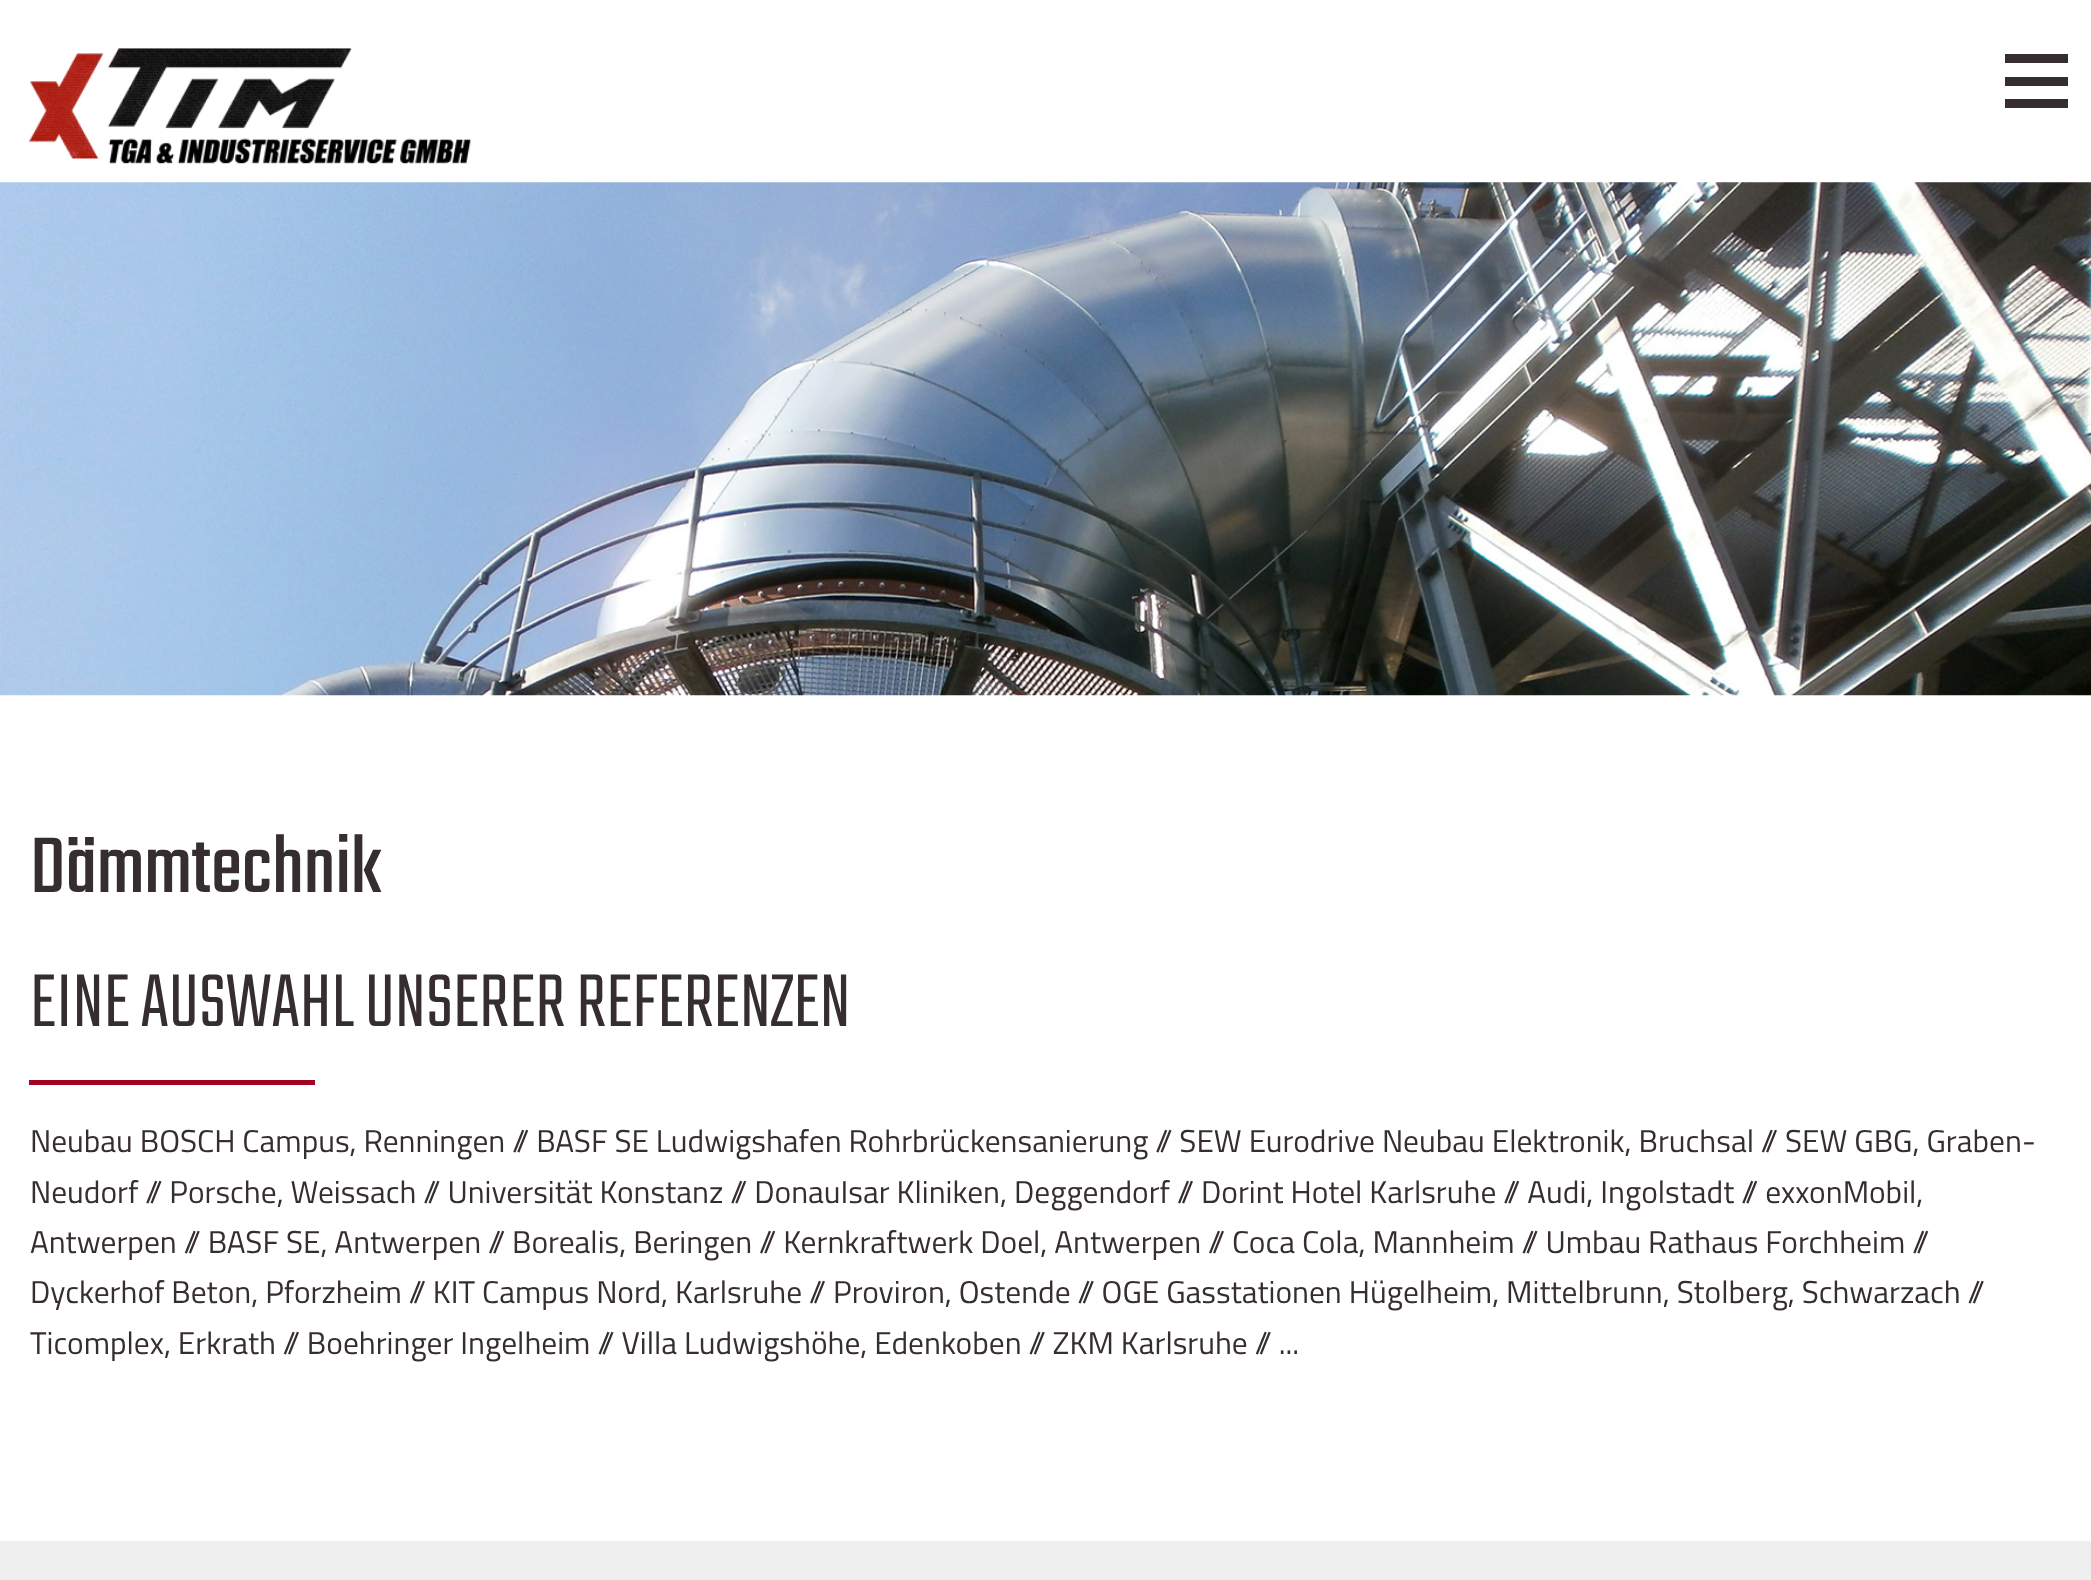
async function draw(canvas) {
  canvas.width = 2091
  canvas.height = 1580
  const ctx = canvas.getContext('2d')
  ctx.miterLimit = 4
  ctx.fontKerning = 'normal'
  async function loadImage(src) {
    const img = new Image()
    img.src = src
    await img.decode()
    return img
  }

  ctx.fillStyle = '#fff'
  ctx.fillRect(0, 0, 2091, 1580)
  ctx.drawImage(await loadImage('image0.png'), 29, 48, 442, 116)
  ctx.fillStyle = '#352d2f'
  ctx.fillRect(2005, 54, 63, 9)
  ctx.fillRect(2005, 77, 63, 9)
  ctx.fillRect(2005, 99, 63, 9)
  ctx.drawImage(await loadImage('image1.png'), 0, 182, 2091, 514)
  ctx.font = '86.5px Teko'
  ctx.fillText('Dämmtechnik', 30, 892)
  ctx.font = '300 82.75px Teko'
  ctx.fillText('EINE AUSWAHL UNSERER REFERENZEN', 30, 1026)
  ctx.fillStyle = '#a00524'
  ctx.fillRect(29, 1080, 286, 5)
  ctx.font = '31.5px Titillium Web'
  ctx.fillStyle = '#352d2f'
  ctx.fillText('Neubau BOSCH Campus, Renningen // BASF SE Ludwigshafen Rohrbrückensanierung // SEW Eurodrive Neubau Elektronik, Bruchsal // SEW GBG, Graben-', 30, 1152)
  ctx.fillText('Neudorf // Porsche, Weissach // Universität Konstanz // DonauIsar Kliniken, Deggendorf // Dorint Hotel Karlsruhe // Audi, Ingolstadt // exxonMobil,', 30, 1203)
  ctx.fillText('Antwerpen // BASF SE, Antwerpen // Borealis, Beringen // Kernkraftwerk Doel, Antwerpen // Coca Cola, Mannheim // Umbau Rathaus Forchheim //', 30, 1253)
  ctx.fillText('Dyckerhof Beton, Pforzheim // KIT Campus Nord, Karlsruhe // Proviron, Ostende // OGE Gasstationen Hügelheim, Mittelbrunn, Stolberg, Schwarzach //', 30, 1303)
  ctx.fillText('Ticomplex, Erkrath // Boehringer Ingelheim // Villa Ludwigshöhe, Edenkoben // ZKM Karlsruhe // ...', 30, 1354)
  ctx.fillStyle = '#efefef'
  ctx.fillRect(0, 1541, 2091, 39)
}

draw(document.querySelector('canvas'))
